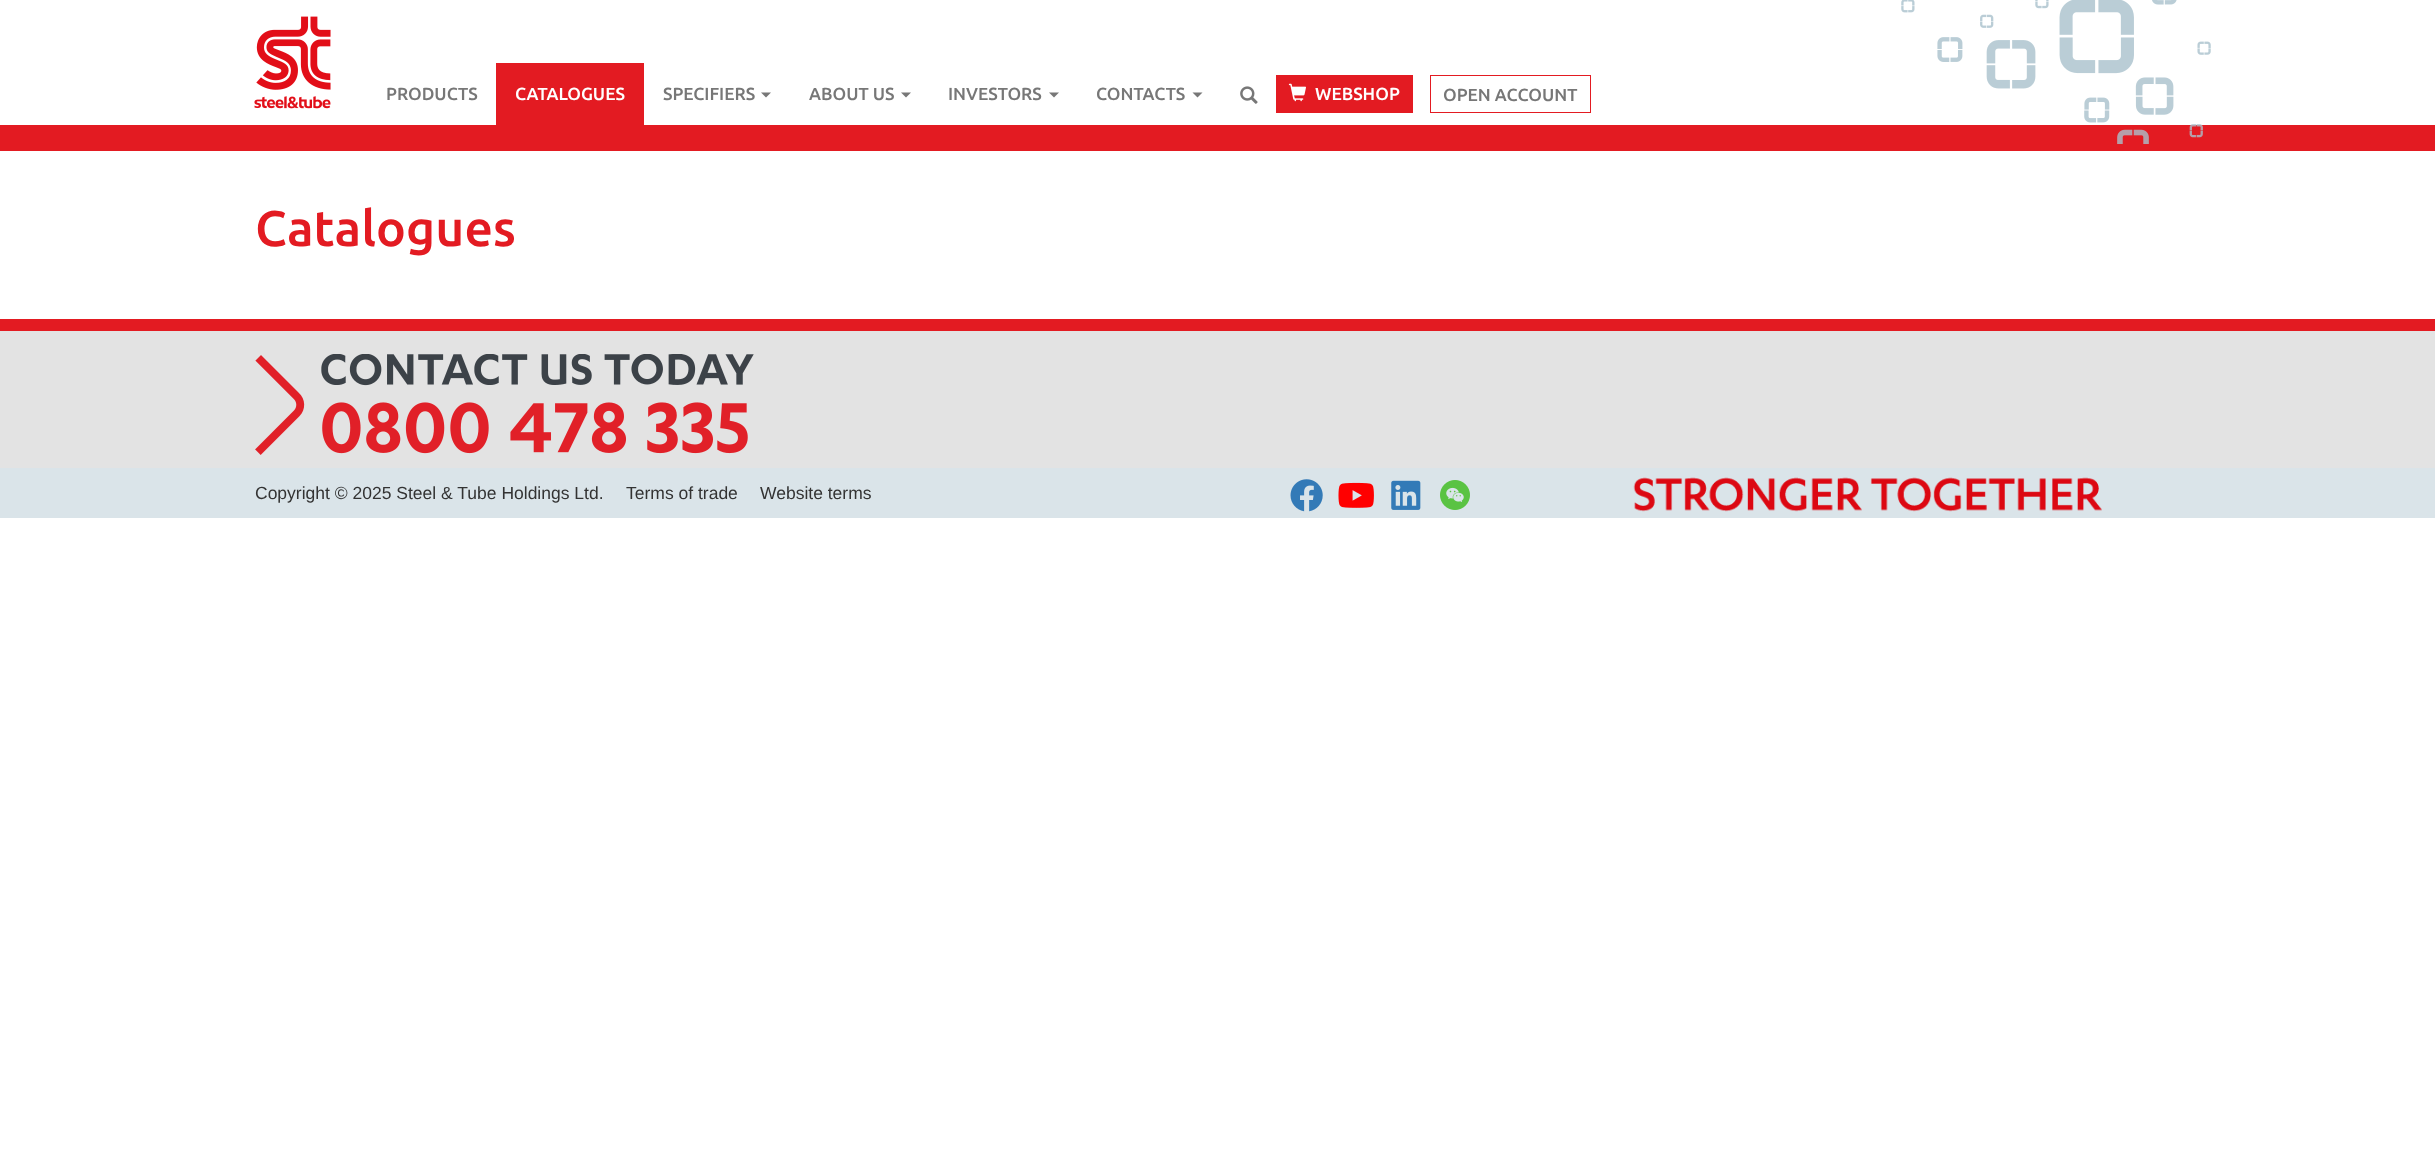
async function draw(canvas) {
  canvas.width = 2435
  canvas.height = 1149
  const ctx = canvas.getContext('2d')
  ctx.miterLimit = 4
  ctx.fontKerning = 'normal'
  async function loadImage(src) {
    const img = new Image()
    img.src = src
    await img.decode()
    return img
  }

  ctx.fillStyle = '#fff'
  ctx.fillRect(0, 0, 2435, 1149)
  ctx.drawImage(await loadImage('image0.png'), 254, 16, 77, 93)
  ctx.font = '500 17.5px Ubuntu'
  ctx.fillStyle = '#777'
  ctx.fillText('PRODUCTS', 386, 100)
  ctx.fillStyle = '#e31b22'
  ctx.fillRect(496, 63, 148, 62)
  ctx.fillStyle = '#fff'
  ctx.fillText('CATALOGUES', 515, 100)
  ctx.fillStyle = '#777'
  ctx.fillText('SPECIFIERS', 663, 100)
  ctx.beginPath()
  ctx.moveTo(761, 92.5)
  ctx.lineTo(771, 92.5)
  ctx.lineTo(766, 97.5)
  ctx.closePath()
  ctx.fill()
  ctx.fillText('ABOUT US', 809, 100)
  ctx.beginPath()
  ctx.moveTo(901, 92.5)
  ctx.lineTo(911, 92.5)
  ctx.lineTo(906, 97.5)
  ctx.closePath()
  ctx.fill()
  ctx.fillText('INVESTORS', 948, 100)
  ctx.beginPath()
  ctx.moveTo(1049, 92.5)
  ctx.lineTo(1059, 92.5)
  ctx.lineTo(1054, 97.5)
  ctx.closePath()
  ctx.fill()
  ctx.fillText('CONTACTS', 1096, 100)
  ctx.beginPath()
  ctx.moveTo(1192.5, 92.5)
  ctx.lineTo(1202.5, 92.5)
  ctx.lineTo(1197.5, 97.5)
  ctx.closePath()
  ctx.fill()
  ctx.drawImage(await loadImage('image1.png'), 1240, 86, 18, 18)
  ctx.fillStyle = '#e31b22'
  ctx.fillRect(1276, 75, 137, 38)
  ctx.drawImage(await loadImage('image2.png'), 1288, 83, 18, 19)
  ctx.fillStyle = '#fff'
  ctx.fillText('WEBSHOP', 1315, 100)
  ctx.strokeStyle = '#e31b22'
  ctx.strokeRect(1430.5, 75.5, 160, 37)
  ctx.fillStyle = '#777'
  ctx.fillText('OPEN ACCOUNT', 1443, 101)
  ctx.fillStyle = '#e31b22'
  ctx.fillRect(0, 125, 2435, 26)
  ctx.drawImage(await loadImage('image3.png'), 1901, 0, 310, 144)
  ctx.font = '500 50px Ubuntu'
  ctx.fillText('Catalogues', 255, 246)
  ctx.fillRect(0, 319, 2435, 12)
  ctx.fillStyle = '#e3e3e3'
  ctx.fillRect(0, 331, 2435, 137)
  ctx.drawImage(await loadImage('image4.png'), 255, 354, 499, 101)
  ctx.fillStyle = '#dae4e9'
  ctx.fillRect(0, 468, 2435, 50)
  ctx.font = '17.5px Liberation Sans'
  ctx.fillStyle = '#333'
  ctx.fillText('Copyright © 2025 Steel & Tube Holdings Ltd.', 255, 499)
  ctx.fillText('Terms of trade', 626, 499)
  ctx.fillText('Website terms', 760, 499)
  ctx.drawImage(await loadImage('image5.png'), 1290, 479, 33, 33)
  ctx.drawImage(await loadImage('image6.png'), 1338, 482, 36, 26)
  ctx.drawImage(await loadImage('image7.png'), 1391, 480, 30, 30)
  ctx.drawImage(await loadImage('image8.png'), 1440, 480, 30, 30)
  ctx.drawImage(await loadImage('image9.png'), 1633, 477, 469, 35)
}

draw(document.querySelector('canvas'))
